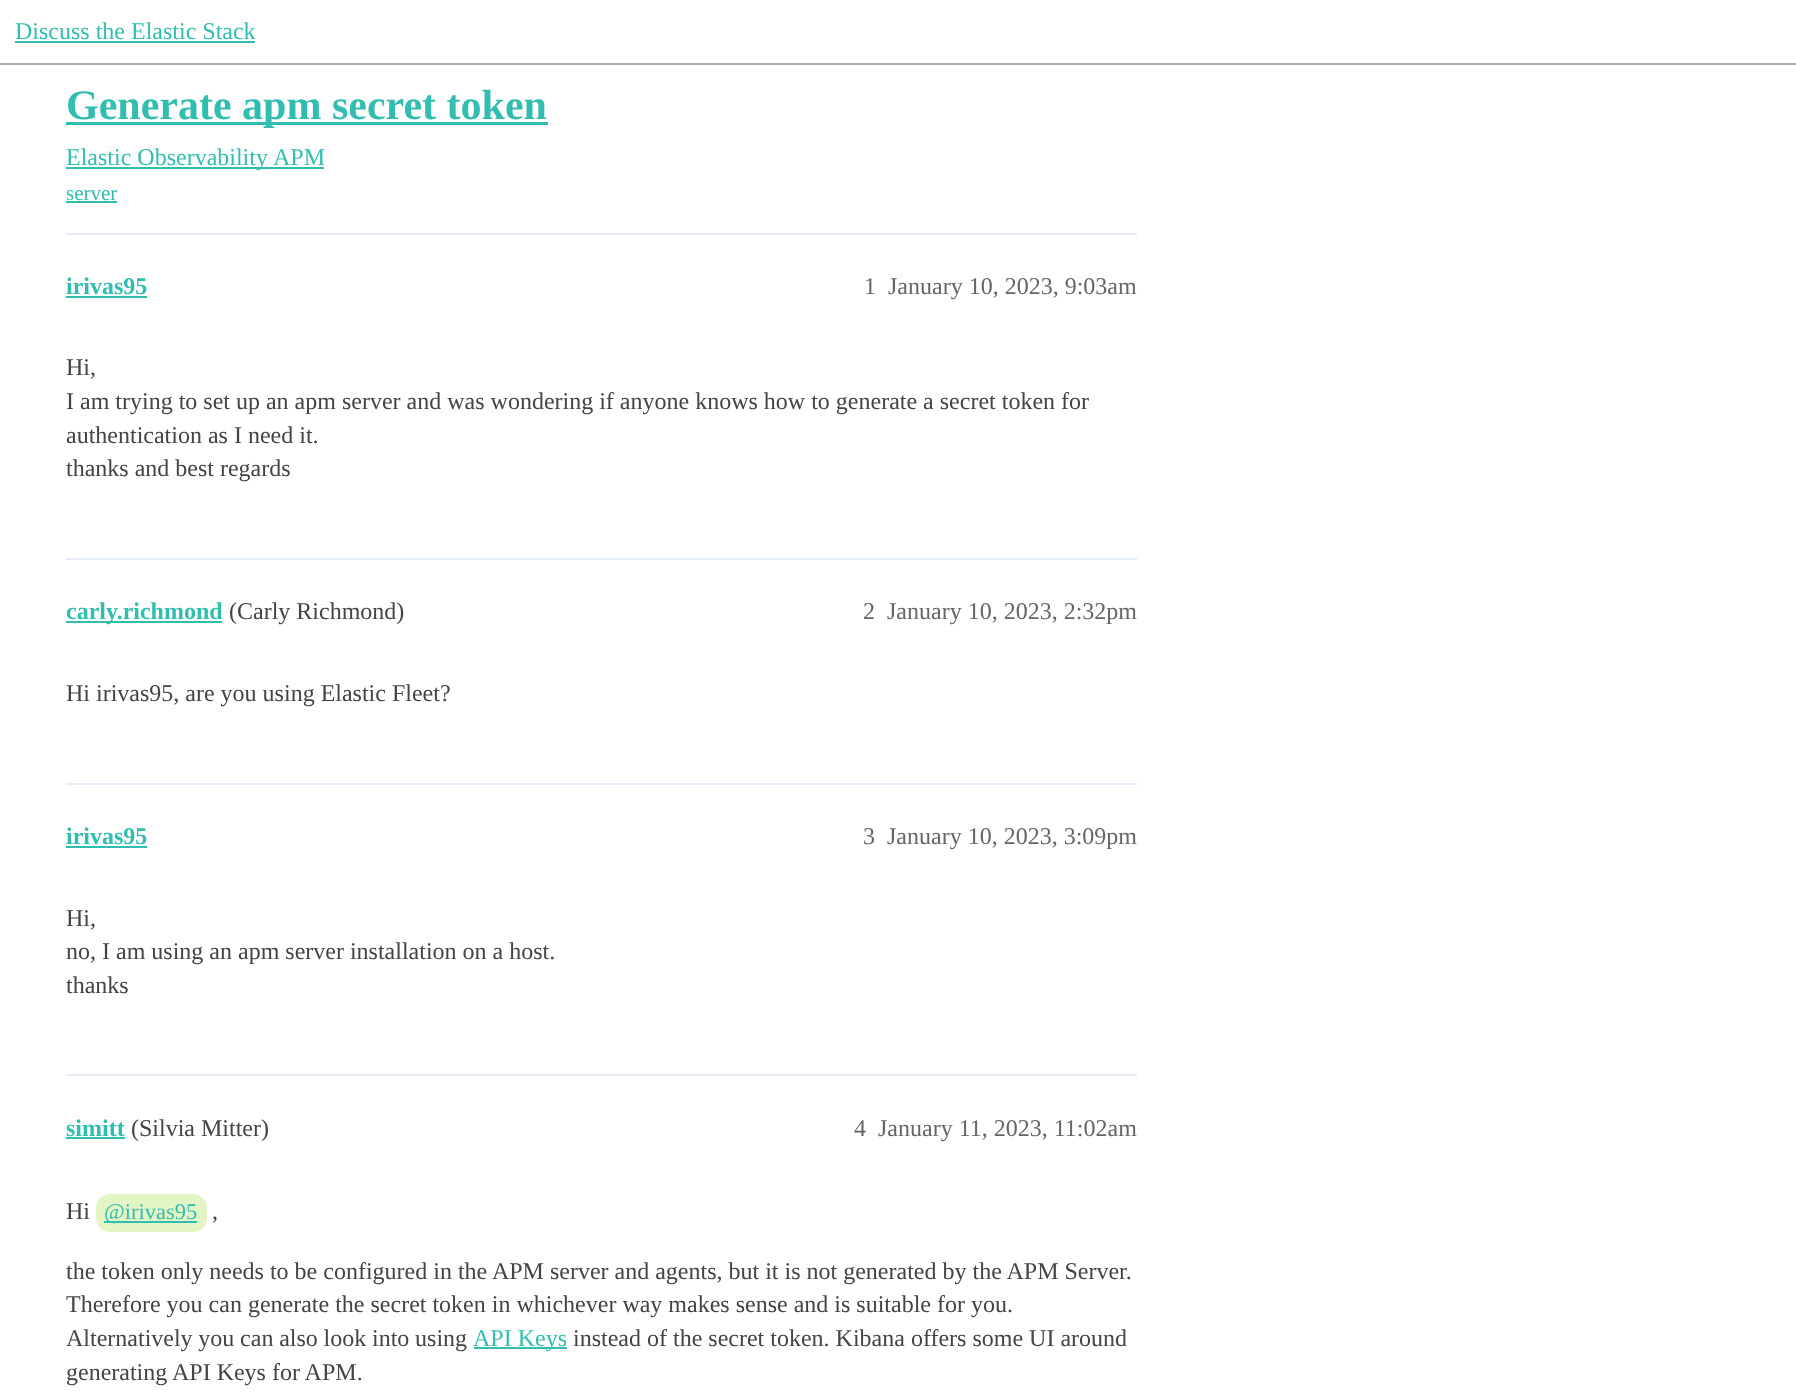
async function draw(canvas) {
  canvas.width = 1796
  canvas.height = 1399
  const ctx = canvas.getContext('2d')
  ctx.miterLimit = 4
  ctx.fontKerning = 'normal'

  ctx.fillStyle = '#fff'
  ctx.fillRect(0, 0, 1796, 1399)
  ctx.fillStyle = '#ababab'
  ctx.fillRect(0, 63, 1796, 2)
  ctx.font = '24px Liberation Serif'
  ctx.fillStyle = '#31beb1'
  ctx.fillText('Discuss the Elastic Stack', 15, 39)
  ctx.fillRect(15, 41, 240, 2)
  ctx.fillRect(66, 122, 482, 3)
  ctx.font = 'bold 42px Liberation Serif'
  ctx.fillText('Generate apm secret token', 66, 119)
  ctx.fillRect(66, 167, 258, 2)
  ctx.font = '24px Liberation Serif'
  ctx.fillText('Elastic Observability', 66, 165)
  ctx.fillText('APM', 273, 165)
  ctx.font = '21px Liberation Serif'
  ctx.fillText('server', 66, 200)
  ctx.fillRect(66, 201, 51, 2)
  ctx.fillStyle = '#e6ebf8'
  ctx.fillRect(66, 233, 1071, 2)
  ctx.font = 'bold 24px Liberation Serif'
  ctx.fillStyle = '#31beb1'
  ctx.fillText('irivas95', 66, 294)
  ctx.fillRect(66, 296, 81, 2)
  ctx.font = '24px Liberation Serif'
  ctx.fillStyle = '#666'
  ctx.fillText('1', 864, 294)
  ctx.fillText('January 10, 2023, 9:03am', 888, 294)
  ctx.fillStyle = '#444'
  ctx.fillText('Hi,', 66, 375)
  ctx.fillText('I am trying to set up an apm server and was wondering if anyone knows how to generate a secret token for', 66, 409)
  ctx.fillText('authentication as I need it.', 66, 443)
  ctx.fillText('thanks and best regards', 66, 476)
  ctx.fillStyle = '#e6ebf8'
  ctx.fillRect(66, 558, 1071, 2)
  ctx.fillStyle = '#31beb1'
  ctx.fillRect(66, 621, 156, 2)
  ctx.font = 'bold 24px Liberation Serif'
  ctx.fillText('carly.richmond', 66, 619)
  ctx.font = '24px Liberation Serif'
  ctx.fillStyle = '#444'
  ctx.fillText('(Carly Richmond)', 229, 619)
  ctx.fillStyle = '#666'
  ctx.fillText('2', 863, 619)
  ctx.fillText('January 10, 2023, 2:32pm', 887, 619)
  ctx.fillStyle = '#444'
  ctx.fillText('Hi irivas95, are you using Elastic Fleet?', 66, 701)
  ctx.fillStyle = '#e6ebf8'
  ctx.fillRect(66, 783, 1071, 2)
  ctx.font = 'bold 24px Liberation Serif'
  ctx.fillStyle = '#31beb1'
  ctx.fillText('irivas95', 66, 844)
  ctx.fillRect(66, 846, 81, 2)
  ctx.font = '24px Liberation Serif'
  ctx.fillStyle = '#666'
  ctx.fillText('3', 863, 844)
  ctx.fillText('January 10, 2023, 3:09pm', 887, 844)
  ctx.fillStyle = '#444'
  ctx.fillText('Hi,', 66, 926)
  ctx.fillText('no, I am using an apm server installation on a host.', 66, 959)
  ctx.fillText('thanks', 66, 993)
  ctx.fillStyle = '#e6ebf8'
  ctx.fillRect(66, 1074, 1071, 2)
  ctx.font = 'bold 24px Liberation Serif'
  ctx.fillStyle = '#31beb1'
  ctx.fillText('simitt', 66, 1136)
  ctx.fillRect(66, 1137, 59, 2)
  ctx.font = '24px Liberation Serif'
  ctx.fillStyle = '#444'
  ctx.fillText('(Silvia Mitter)', 131, 1136)
  ctx.fillStyle = '#666'
  ctx.fillText('4', 854, 1136)
  ctx.fillText('January 11, 2023, 11:02am', 878, 1136)
  ctx.fillStyle = '#444'
  ctx.fillText('Hi', 66, 1219)
  ctx.fillStyle = '#e3f4c5'
  ctx.beginPath()
  ctx.roundRect(96, 1194, 111, 38, 14)
  ctx.fill()
  ctx.fillStyle = '#31beb1'
  ctx.fillRect(104, 1221, 93, 2)
  ctx.font = '22.5px Liberation Serif'
  ctx.fillText('@irivas95', 104, 1219)
  ctx.font = '24px Liberation Serif'
  ctx.fillStyle = '#444'
  ctx.fillText(',', 212, 1219)
  ctx.fillText('the token only needs to be configured in the APM server and agents, but it is not generated by the APM Server.', 66, 1279)
  ctx.fillText('Therefore you can generate the secret token in whichever way makes sense and is suitable for you.', 66, 1312)
  ctx.wordSpacing = '-0.25px'
  ctx.fillText('Alternatively you can also look into using', 66, 1346)
  ctx.fillStyle = '#31beb1'
  ctx.fillRect(474, 1347, 93, 2)
  ctx.wordSpacing = '0px'
  ctx.fillText('API Keys', 473, 1346)
  ctx.fillStyle = '#444'
  ctx.fillText('instead of the secret token. Kibana offers some UI around', 573, 1346)
  ctx.fillText('generating API Keys for APM.', 66, 1380)
}

draw(document.querySelector('canvas'))
